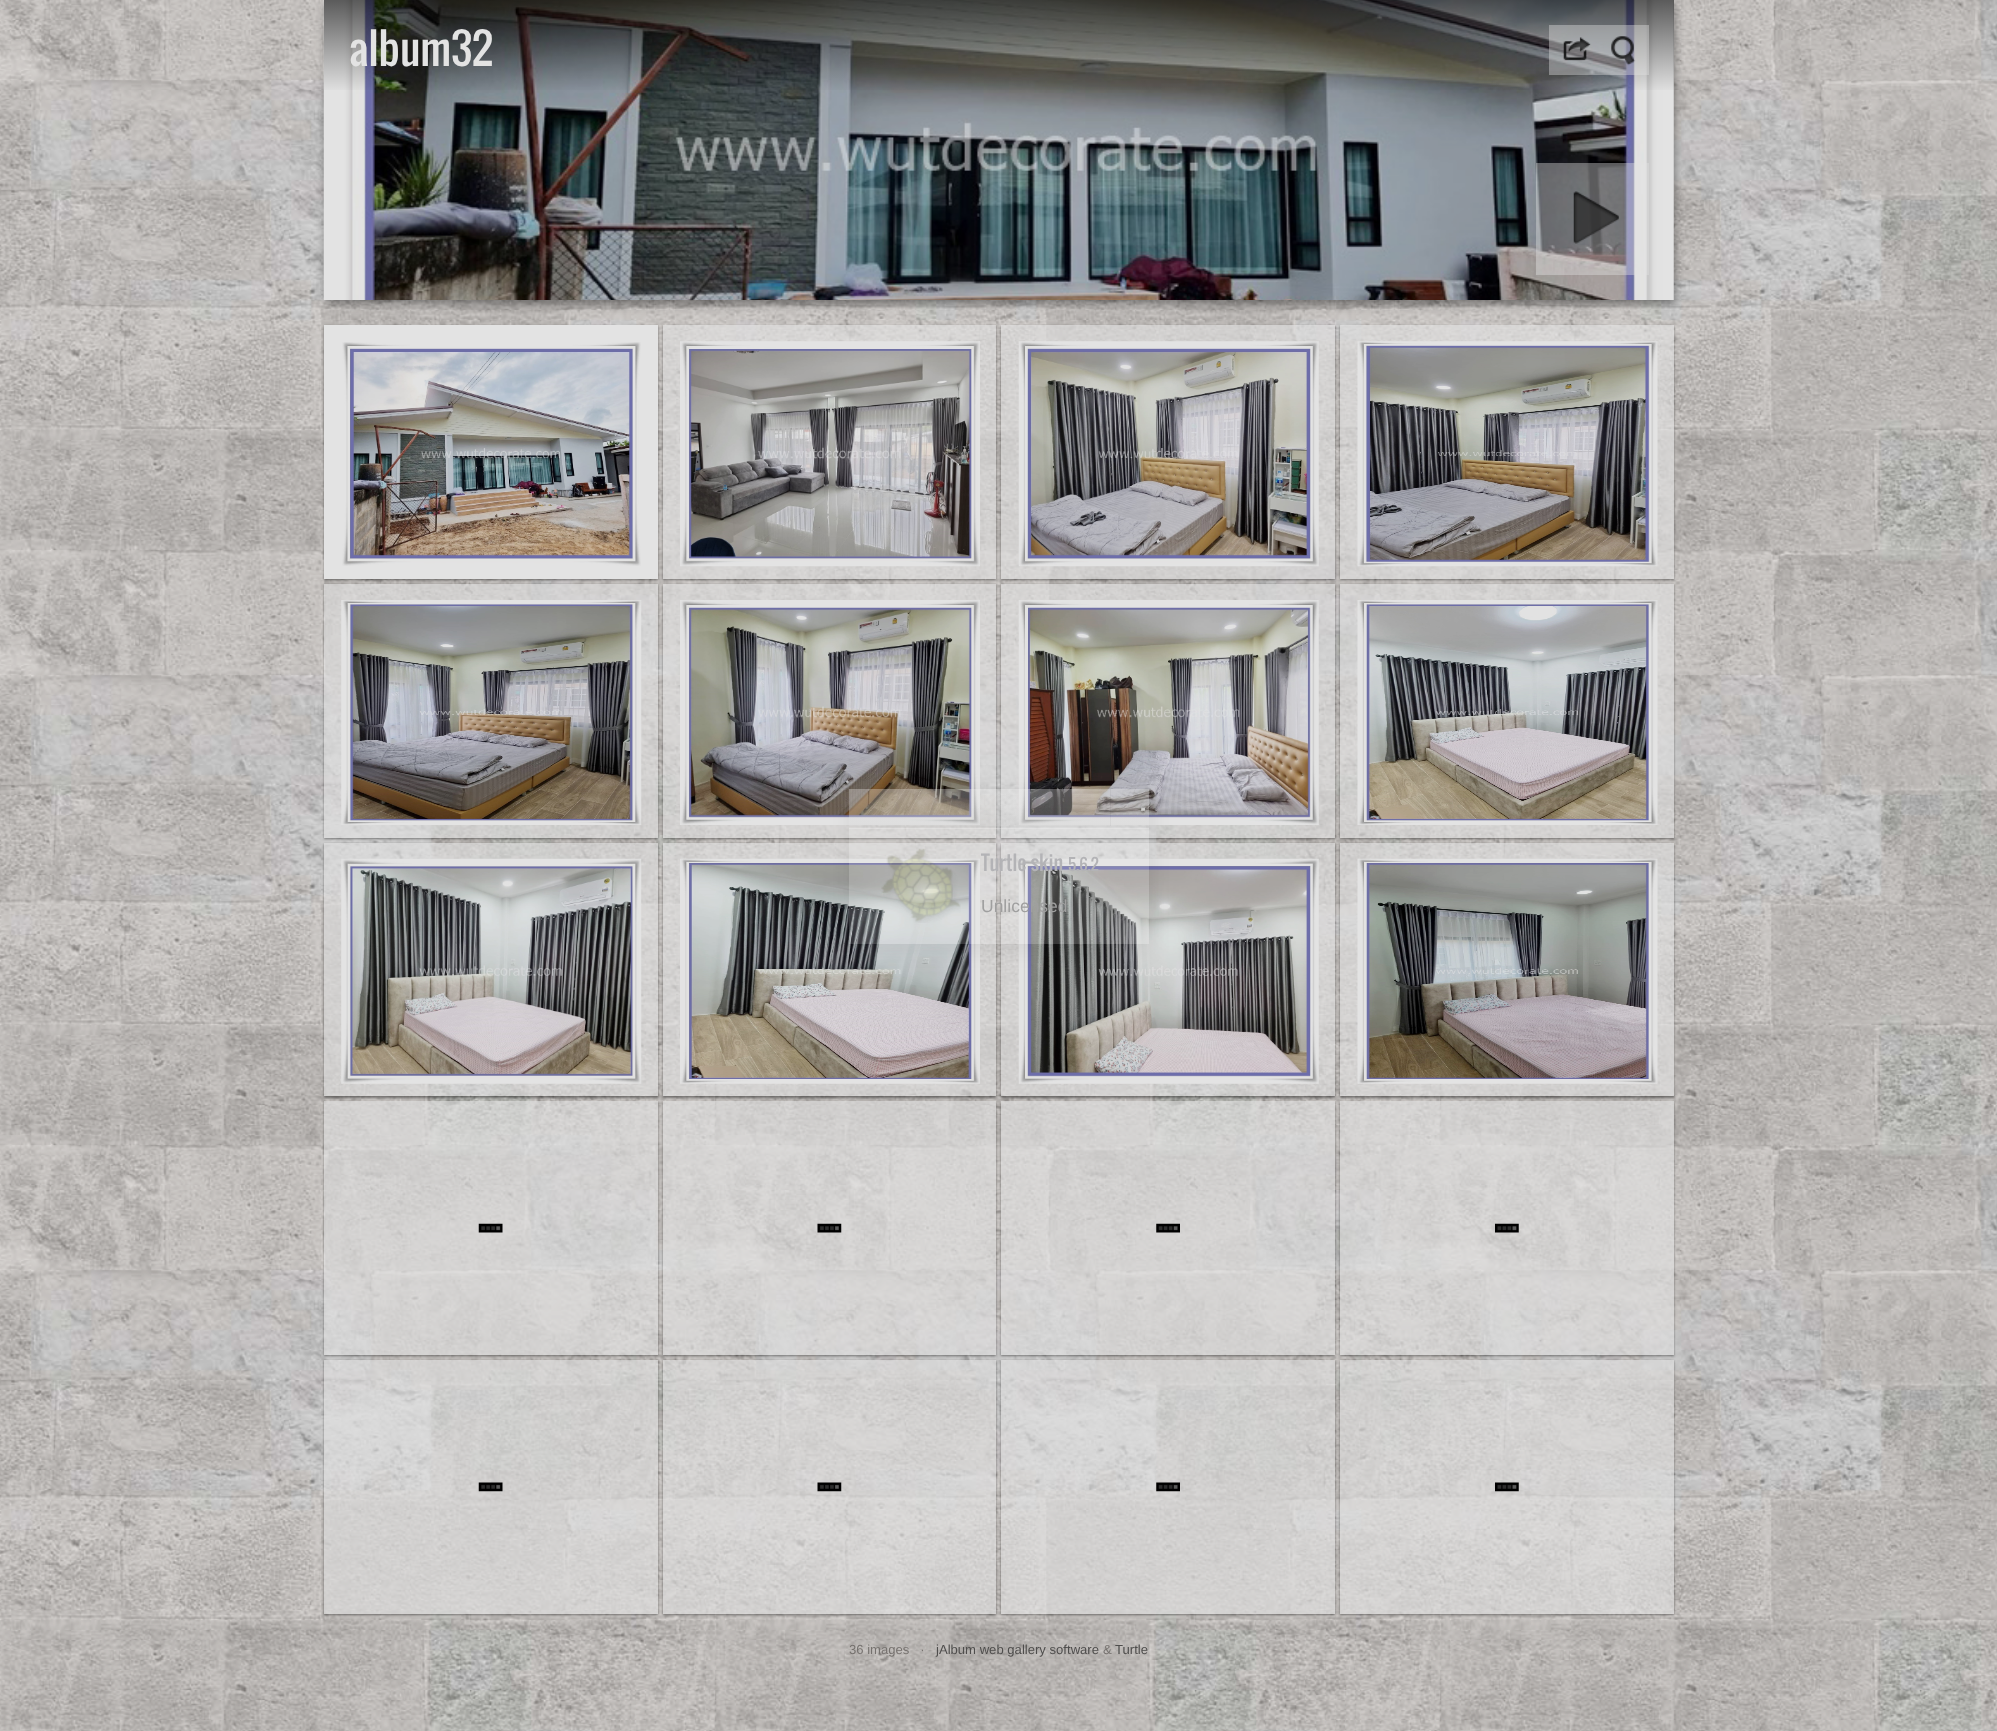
async function draw(canvas) {
  canvas.width = 1997
  canvas.height = 1731
  const ctx = canvas.getContext('2d')
  ctx.miterLimit = 4
  ctx.fontKerning = 'normal'
  async function loadImage(src) {
    const img = new Image()
    img.src = src
    await img.decode()
    return img
  }
  let gradient

  ctx.fillStyle = '#fff'
  ctx.fillRect(0, 0, 1997, 1731)
  ctx.drawImage(await loadImage('image0.png'), 0, 0, 1997, 1731)
  ctx.fillStyle = '#00000066'
  ctx.filter = 'blur(5px)'
  ctx.beginPath()
  ctx.rect(325, 4, 1350, 300)
  ctx.fill()
  ctx.filter = 'none'
  ctx.drawImage(await loadImage('image1.png'), 323, 0, 1351, 300)
  gradient = ctx.createLinearGradient(999, 0, 999, 93)
  gradient.addColorStop(0, '#00000099')
  gradient.addColorStop(1, '#00000000')
  ctx.fillStyle = gradient
  ctx.fillRect(324, 0, 1350, 90)
  ctx.font = '42px Oswald'
  ctx.fillStyle = '#e3e3e3'
  ctx.fillText('album32', 349, 66)
  ctx.fillStyle = '#e3e3e366'
  ctx.fillRect(1549, 25, 50, 50)
  ctx.drawImage(await loadImage('image2.png'), 1563, 37, 28, 24)
  ctx.fillRect(1599, 25, 50, 50)
  ctx.drawImage(await loadImage('image3.png'), 1611, 36, 25, 30)
  ctx.fillRect(1536, 163, 113, 112)
  ctx.drawImage(await loadImage('image4.png'), 1573, 191, 46, 53)
  ctx.fillStyle = '#00000066'
  ctx.filter = 'blur(1px)'
  ctx.beginPath()
  ctx.rect(324, 326, 334, 254)
  ctx.fill()
  ctx.filter = 'none'
  ctx.fillStyle = '#e3e3e3'
  ctx.fillRect(324, 325, 334, 254)
  ctx.drawImage(await loadImage('image5.png'), 342, 342, 299, 224)
  ctx.save()
  ctx.beginPath()
  ctx.moveTo(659, 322)
  ctx.lineTo(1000, 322)
  ctx.lineTo(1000, 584)
  ctx.lineTo(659, 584)
  ctx.closePath()
  ctx.moveTo(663, 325)
  ctx.lineTo(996, 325)
  ctx.lineTo(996, 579)
  ctx.lineTo(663, 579)
  ctx.closePath()
  ctx.clip('evenodd')
  ctx.fillStyle = '#00000066'
  ctx.filter = 'blur(1px)'
  ctx.beginPath()
  ctx.rect(663, 326, 333, 254)
  ctx.fill()
  ctx.filter = 'none'
  ctx.restore()
  ctx.fillStyle = '#e3e3e399'
  ctx.fillRect(663, 325, 333, 254)
  ctx.drawImage(await loadImage('image6.png'), 680, 341, 300, 226)
  ctx.save()
  ctx.beginPath()
  ctx.moveTo(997, 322)
  ctx.lineTo(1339, 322)
  ctx.lineTo(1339, 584)
  ctx.lineTo(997, 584)
  ctx.closePath()
  ctx.moveTo(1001, 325)
  ctx.lineTo(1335, 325)
  ctx.lineTo(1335, 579)
  ctx.lineTo(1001, 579)
  ctx.closePath()
  ctx.clip('evenodd')
  ctx.fillStyle = '#00000066'
  ctx.filter = 'blur(1px)'
  ctx.beginPath()
  ctx.rect(1001, 326, 334, 254)
  ctx.fill()
  ctx.filter = 'none'
  ctx.restore()
  ctx.fillRect(1001, 325, 334, 254)
  ctx.drawImage(await loadImage('image7.png'), 1018, 341, 301, 226)
  ctx.save()
  ctx.beginPath()
  ctx.moveTo(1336, 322)
  ctx.lineTo(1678, 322)
  ctx.lineTo(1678, 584)
  ctx.lineTo(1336, 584)
  ctx.closePath()
  ctx.moveTo(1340, 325)
  ctx.lineTo(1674, 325)
  ctx.lineTo(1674, 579)
  ctx.lineTo(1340, 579)
  ctx.closePath()
  ctx.clip('evenodd')
  ctx.fillStyle = '#00000066'
  ctx.filter = 'blur(1px)'
  ctx.beginPath()
  ctx.rect(1340, 326, 334, 254)
  ctx.fill()
  ctx.filter = 'none'
  ctx.restore()
  ctx.fillRect(1340, 325, 334, 254)
  ctx.drawImage(await loadImage('image8.png'), 1357, 341, 301, 226)
  ctx.save()
  ctx.beginPath()
  ctx.moveTo(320, 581)
  ctx.lineTo(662, 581)
  ctx.lineTo(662, 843)
  ctx.lineTo(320, 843)
  ctx.closePath()
  ctx.moveTo(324, 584)
  ctx.lineTo(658, 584)
  ctx.lineTo(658, 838)
  ctx.lineTo(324, 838)
  ctx.closePath()
  ctx.clip('evenodd')
  ctx.fillStyle = '#00000066'
  ctx.filter = 'blur(1px)'
  ctx.beginPath()
  ctx.rect(324, 585, 334, 254)
  ctx.fill()
  ctx.filter = 'none'
  ctx.restore()
  ctx.fillRect(324, 584, 334, 254)
  ctx.drawImage(await loadImage('image9.png'), 341, 600, 301, 225)
  ctx.save()
  ctx.beginPath()
  ctx.moveTo(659, 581)
  ctx.lineTo(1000, 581)
  ctx.lineTo(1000, 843)
  ctx.lineTo(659, 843)
  ctx.closePath()
  ctx.moveTo(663, 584)
  ctx.lineTo(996, 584)
  ctx.lineTo(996, 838)
  ctx.lineTo(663, 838)
  ctx.closePath()
  ctx.clip('evenodd')
  ctx.fillStyle = '#00000066'
  ctx.filter = 'blur(1px)'
  ctx.beginPath()
  ctx.rect(663, 585, 333, 254)
  ctx.fill()
  ctx.filter = 'none'
  ctx.restore()
  ctx.fillRect(663, 584, 333, 254)
  ctx.drawImage(await loadImage('image10.png'), 680, 600, 300, 225)
  ctx.save()
  ctx.beginPath()
  ctx.moveTo(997, 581)
  ctx.lineTo(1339, 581)
  ctx.lineTo(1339, 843)
  ctx.lineTo(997, 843)
  ctx.closePath()
  ctx.moveTo(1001, 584)
  ctx.lineTo(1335, 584)
  ctx.lineTo(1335, 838)
  ctx.lineTo(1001, 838)
  ctx.closePath()
  ctx.clip('evenodd')
  ctx.fillStyle = '#00000066'
  ctx.filter = 'blur(1px)'
  ctx.beginPath()
  ctx.rect(1001, 585, 334, 254)
  ctx.fill()
  ctx.filter = 'none'
  ctx.restore()
  ctx.fillRect(1001, 584, 334, 254)
  ctx.drawImage(await loadImage('image11.png'), 1018, 600, 301, 225)
  ctx.save()
  ctx.beginPath()
  ctx.moveTo(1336, 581)
  ctx.lineTo(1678, 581)
  ctx.lineTo(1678, 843)
  ctx.lineTo(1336, 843)
  ctx.closePath()
  ctx.moveTo(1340, 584)
  ctx.lineTo(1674, 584)
  ctx.lineTo(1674, 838)
  ctx.lineTo(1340, 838)
  ctx.closePath()
  ctx.clip('evenodd')
  ctx.fillStyle = '#00000066'
  ctx.filter = 'blur(1px)'
  ctx.beginPath()
  ctx.rect(1340, 585, 334, 254)
  ctx.fill()
  ctx.filter = 'none'
  ctx.restore()
  ctx.fillRect(1340, 584, 334, 254)
  ctx.drawImage(await loadImage('image12.png'), 1357, 600, 301, 225)
  ctx.save()
  ctx.beginPath()
  ctx.moveTo(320, 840)
  ctx.lineTo(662, 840)
  ctx.lineTo(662, 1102)
  ctx.lineTo(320, 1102)
  ctx.closePath()
  ctx.moveTo(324, 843)
  ctx.lineTo(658, 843)
  ctx.lineTo(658, 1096)
  ctx.lineTo(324, 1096)
  ctx.closePath()
  ctx.clip('evenodd')
  ctx.fillStyle = '#00000066'
  ctx.filter = 'blur(1px)'
  ctx.beginPath()
  ctx.rect(324, 844, 334, 254)
  ctx.fill()
  ctx.filter = 'none'
  ctx.restore()
  ctx.fillRect(324, 843, 334, 253)
  ctx.drawImage(await loadImage('image13.png'), 341, 858, 301, 226)
  ctx.save()
  ctx.beginPath()
  ctx.moveTo(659, 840)
  ctx.lineTo(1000, 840)
  ctx.lineTo(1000, 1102)
  ctx.lineTo(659, 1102)
  ctx.closePath()
  ctx.moveTo(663, 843)
  ctx.lineTo(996, 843)
  ctx.lineTo(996, 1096)
  ctx.lineTo(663, 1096)
  ctx.closePath()
  ctx.clip('evenodd')
  ctx.fillStyle = '#00000066'
  ctx.filter = 'blur(1px)'
  ctx.beginPath()
  ctx.rect(663, 844, 333, 254)
  ctx.fill()
  ctx.filter = 'none'
  ctx.restore()
  ctx.fillRect(663, 843, 333, 253)
  ctx.drawImage(await loadImage('image14.png'), 680, 858, 300, 226)
  ctx.save()
  ctx.beginPath()
  ctx.moveTo(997, 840)
  ctx.lineTo(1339, 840)
  ctx.lineTo(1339, 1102)
  ctx.lineTo(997, 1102)
  ctx.closePath()
  ctx.moveTo(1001, 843)
  ctx.lineTo(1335, 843)
  ctx.lineTo(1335, 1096)
  ctx.lineTo(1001, 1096)
  ctx.closePath()
  ctx.clip('evenodd')
  ctx.fillStyle = '#00000066'
  ctx.filter = 'blur(1px)'
  ctx.beginPath()
  ctx.rect(1001, 844, 334, 254)
  ctx.fill()
  ctx.filter = 'none'
  ctx.restore()
  ctx.fillRect(1001, 843, 334, 253)
  ctx.drawImage(await loadImage('image15.png'), 1018, 858, 301, 226)
  ctx.save()
  ctx.beginPath()
  ctx.moveTo(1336, 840)
  ctx.lineTo(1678, 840)
  ctx.lineTo(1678, 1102)
  ctx.lineTo(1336, 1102)
  ctx.closePath()
  ctx.moveTo(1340, 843)
  ctx.lineTo(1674, 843)
  ctx.lineTo(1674, 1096)
  ctx.lineTo(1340, 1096)
  ctx.closePath()
  ctx.clip('evenodd')
  ctx.fillStyle = '#00000066'
  ctx.filter = 'blur(1px)'
  ctx.beginPath()
  ctx.rect(1340, 844, 334, 254)
  ctx.fill()
  ctx.filter = 'none'
  ctx.restore()
  ctx.fillRect(1340, 843, 334, 253)
  ctx.drawImage(await loadImage('image16.png'), 1357, 858, 301, 226)
  ctx.save()
  ctx.beginPath()
  ctx.moveTo(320, 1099)
  ctx.lineTo(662, 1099)
  ctx.lineTo(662, 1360)
  ctx.lineTo(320, 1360)
  ctx.closePath()
  ctx.moveTo(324, 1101)
  ctx.lineTo(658, 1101)
  ctx.lineTo(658, 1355)
  ctx.lineTo(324, 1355)
  ctx.closePath()
  ctx.clip('evenodd')
  ctx.fillStyle = '#00000066'
  ctx.filter = 'blur(1px)'
  ctx.beginPath()
  ctx.rect(324, 1103, 334, 253)
  ctx.fill()
  ctx.filter = 'none'
  ctx.restore()
  ctx.fillRect(324, 1101, 334, 254)
  ctx.drawImage(await loadImage('image17.png'), 478, 1223, 25, 10)
  ctx.save()
  ctx.beginPath()
  ctx.moveTo(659, 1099)
  ctx.lineTo(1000, 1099)
  ctx.lineTo(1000, 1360)
  ctx.lineTo(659, 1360)
  ctx.closePath()
  ctx.moveTo(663, 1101)
  ctx.lineTo(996, 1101)
  ctx.lineTo(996, 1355)
  ctx.lineTo(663, 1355)
  ctx.closePath()
  ctx.clip('evenodd')
  ctx.fillStyle = '#00000066'
  ctx.filter = 'blur(1px)'
  ctx.beginPath()
  ctx.rect(663, 1103, 333, 253)
  ctx.fill()
  ctx.filter = 'none'
  ctx.restore()
  ctx.fillRect(663, 1101, 333, 254)
  ctx.drawImage(await loadImage('image18.png'), 817, 1223, 25, 10)
  ctx.save()
  ctx.beginPath()
  ctx.moveTo(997, 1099)
  ctx.lineTo(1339, 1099)
  ctx.lineTo(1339, 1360)
  ctx.lineTo(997, 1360)
  ctx.closePath()
  ctx.moveTo(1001, 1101)
  ctx.lineTo(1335, 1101)
  ctx.lineTo(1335, 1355)
  ctx.lineTo(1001, 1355)
  ctx.closePath()
  ctx.clip('evenodd')
  ctx.fillStyle = '#00000066'
  ctx.filter = 'blur(1px)'
  ctx.beginPath()
  ctx.rect(1001, 1103, 334, 253)
  ctx.fill()
  ctx.filter = 'none'
  ctx.restore()
  ctx.fillRect(1001, 1101, 334, 254)
  ctx.drawImage(await loadImage('image19.png'), 1156, 1223, 24, 10)
  ctx.save()
  ctx.beginPath()
  ctx.moveTo(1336, 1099)
  ctx.lineTo(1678, 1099)
  ctx.lineTo(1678, 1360)
  ctx.lineTo(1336, 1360)
  ctx.closePath()
  ctx.moveTo(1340, 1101)
  ctx.lineTo(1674, 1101)
  ctx.lineTo(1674, 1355)
  ctx.lineTo(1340, 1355)
  ctx.closePath()
  ctx.clip('evenodd')
  ctx.fillStyle = '#00000066'
  ctx.filter = 'blur(1px)'
  ctx.beginPath()
  ctx.rect(1340, 1103, 334, 253)
  ctx.fill()
  ctx.filter = 'none'
  ctx.restore()
  ctx.fillRect(1340, 1101, 334, 254)
  ctx.drawImage(await loadImage('image20.png'), 1495, 1223, 24, 10)
  ctx.save()
  ctx.beginPath()
  ctx.moveTo(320, 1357)
  ctx.lineTo(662, 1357)
  ctx.lineTo(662, 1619)
  ctx.lineTo(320, 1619)
  ctx.closePath()
  ctx.moveTo(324, 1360)
  ctx.lineTo(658, 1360)
  ctx.lineTo(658, 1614)
  ctx.lineTo(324, 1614)
  ctx.closePath()
  ctx.clip('evenodd')
  ctx.fillStyle = '#00000066'
  ctx.filter = 'blur(1px)'
  ctx.beginPath()
  ctx.rect(324, 1361, 334, 254)
  ctx.fill()
  ctx.filter = 'none'
  ctx.restore()
  ctx.fillRect(324, 1360, 334, 254)
  ctx.drawImage(await loadImage('image21.png'), 478, 1482, 25, 10)
  ctx.save()
  ctx.beginPath()
  ctx.moveTo(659, 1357)
  ctx.lineTo(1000, 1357)
  ctx.lineTo(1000, 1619)
  ctx.lineTo(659, 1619)
  ctx.closePath()
  ctx.moveTo(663, 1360)
  ctx.lineTo(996, 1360)
  ctx.lineTo(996, 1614)
  ctx.lineTo(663, 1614)
  ctx.closePath()
  ctx.clip('evenodd')
  ctx.fillStyle = '#00000066'
  ctx.filter = 'blur(1px)'
  ctx.beginPath()
  ctx.rect(663, 1361, 333, 254)
  ctx.fill()
  ctx.filter = 'none'
  ctx.restore()
  ctx.fillRect(663, 1360, 333, 254)
  ctx.drawImage(await loadImage('image22.png'), 817, 1482, 25, 10)
  ctx.save()
  ctx.beginPath()
  ctx.moveTo(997, 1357)
  ctx.lineTo(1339, 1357)
  ctx.lineTo(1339, 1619)
  ctx.lineTo(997, 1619)
  ctx.closePath()
  ctx.moveTo(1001, 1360)
  ctx.lineTo(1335, 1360)
  ctx.lineTo(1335, 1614)
  ctx.lineTo(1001, 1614)
  ctx.closePath()
  ctx.clip('evenodd')
  ctx.fillStyle = '#00000066'
  ctx.filter = 'blur(1px)'
  ctx.beginPath()
  ctx.rect(1001, 1361, 334, 254)
  ctx.fill()
  ctx.filter = 'none'
  ctx.restore()
  ctx.fillRect(1001, 1360, 334, 254)
  ctx.drawImage(await loadImage('image23.png'), 1156, 1482, 24, 10)
  ctx.save()
  ctx.beginPath()
  ctx.moveTo(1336, 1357)
  ctx.lineTo(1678, 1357)
  ctx.lineTo(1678, 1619)
  ctx.lineTo(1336, 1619)
  ctx.closePath()
  ctx.moveTo(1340, 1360)
  ctx.lineTo(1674, 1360)
  ctx.lineTo(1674, 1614)
  ctx.lineTo(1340, 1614)
  ctx.closePath()
  ctx.clip('evenodd')
  ctx.fillStyle = '#00000066'
  ctx.filter = 'blur(1px)'
  ctx.beginPath()
  ctx.rect(1340, 1361, 334, 254)
  ctx.fill()
  ctx.filter = 'none'
  ctx.restore()
  ctx.fillRect(1340, 1360, 334, 254)
  ctx.drawImage(await loadImage('image24.png'), 1495, 1482, 24, 10)
  ctx.font = '13.1px Liberation Sans'
  ctx.fillStyle = '#75716e'
  ctx.fillText('36 images   ·', 849, 1654)
  ctx.fillStyle = '#4e4d4c'
  ctx.fillText('jAlbum web gallery software', 936, 1654)
  ctx.fillStyle = '#75716e'
  ctx.fillText('&', 1103, 1654)
  ctx.fillStyle = '#4e4d4c'
  ctx.fillText('Turtle', 1115, 1654)
  ctx.save()
  ctx.beginPath()
  ctx.moveTo(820, 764)
  ctx.lineTo(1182, 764)
  ctx.lineTo(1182, 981)
  ctx.lineTo(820, 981)
  ctx.closePath()
  ctx.moveTo(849, 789)
  ctx.lineTo(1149, 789)
  ctx.lineTo(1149, 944)
  ctx.lineTo(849, 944)
  ctx.closePath()
  ctx.clip('evenodd')
  ctx.fillStyle = '#00000012'
  ctx.filter = 'blur(10px)'
  ctx.beginPath()
  ctx.rect(851, 795, 300, 155)
  ctx.fill()
  ctx.filter = 'none'
  ctx.restore()
  ctx.fillStyle = '#d8d8d82e'
  ctx.fillRect(849, 789, 300, 37)
  gradient = ctx.createLinearGradient(999, 789, 999, 826)
  gradient.addColorStop(0, '#ffffff2e')
  gradient.addColorStop(0.5, '#eeeeee2e')
  gradient.addColorStop(0.5, '#e8e8e82e')
  gradient.addColorStop(1, '#cccccc2e')
  ctx.fillStyle = gradient
  ctx.fillRect(849, 789, 300, 37)
  ctx.fillStyle = '#bbbbbb2e'
  ctx.fillRect(849, 826, 300, 1)
  ctx.fillStyle = '#0000000a'
  ctx.fillRect(1110, 789, 1, 37)
  ctx.fillStyle = '#f4f4f42b'
  ctx.fillRect(849, 828, 300, 116)
  ctx.fillStyle = '#ffffff2e'
  ctx.fillRect(849, 828, 300, 1)
  ctx.drawImage(await loadImage('image25.png'), 881, 848, 80, 75)
  ctx.font = '20px Oswald'
  ctx.fillStyle = '#b3b3b6'
  ctx.fillText('Turtle skin', 981, 871)
  ctx.font = '16px Oswald'
  ctx.fillText('5.6.2', 1068, 871)
  ctx.font = '17.5px Liberation Sans'
  ctx.fillStyle = '#9f9f9f'
  ctx.fillText('Unlicensed', 981, 912)
}

draw(document.querySelector('canvas'))
